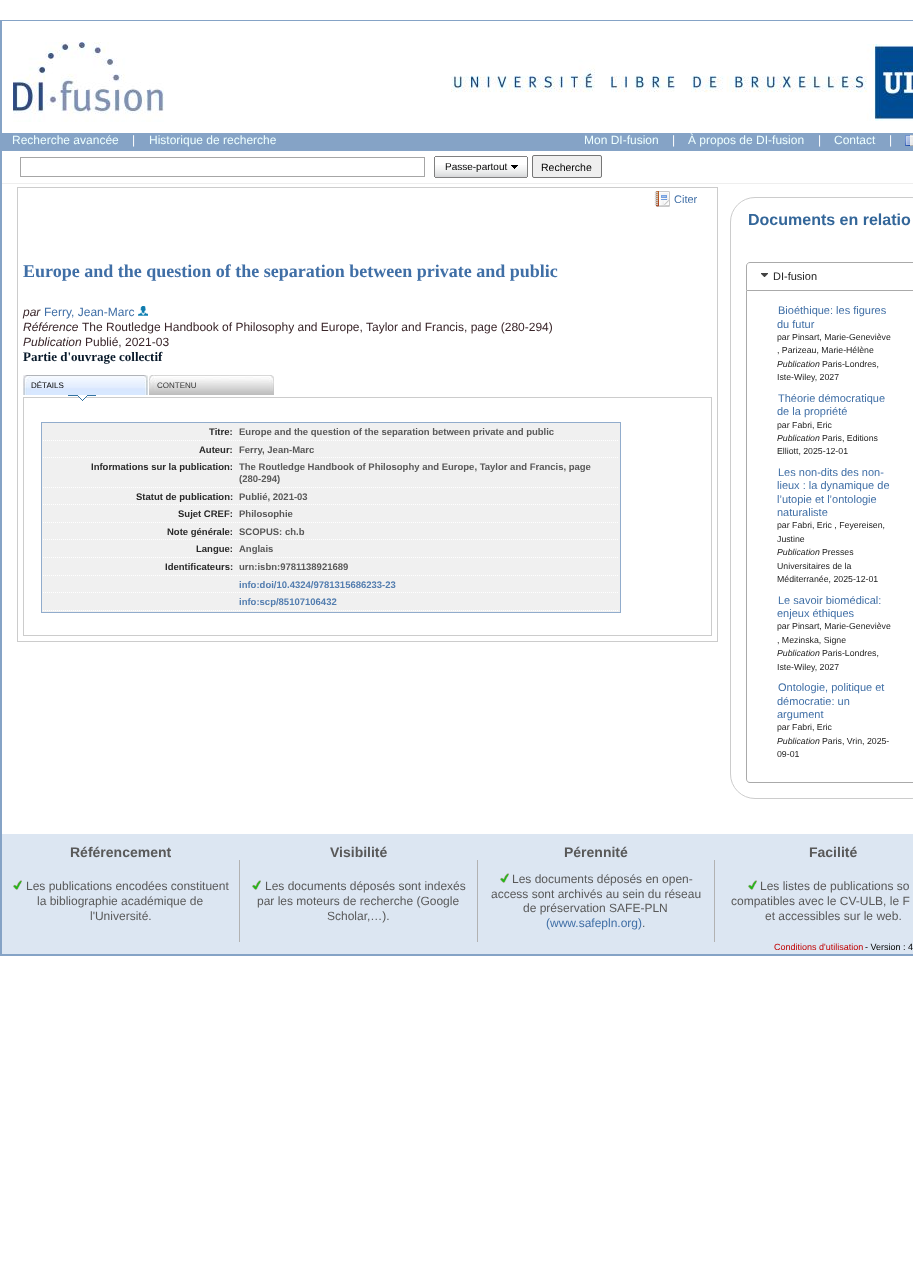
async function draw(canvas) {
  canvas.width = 913
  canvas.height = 1267
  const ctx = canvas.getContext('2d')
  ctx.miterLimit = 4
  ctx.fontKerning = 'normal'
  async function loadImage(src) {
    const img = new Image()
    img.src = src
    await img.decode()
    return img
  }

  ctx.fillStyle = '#fff'
  ctx.fillRect(0, 0, 913, 1267)
  ctx.fillStyle = '#85a3c6'
  ctx.fillRect(0, 20, 913, 936)
  ctx.fillStyle = '#fff'
  ctx.fillRect(2, 21, 911, 813)
  ctx.drawImage(await loadImage('image0.png'), 13, 42, 151, 80)
  ctx.drawImage(await loadImage('image1.png'), 451, 44, 462, 77)
  ctx.fillStyle = '#85a3c6'
  ctx.fillRect(2, 133, 911, 18)
  ctx.font = '12px Liberation Sans'
  ctx.fillStyle = '#eff'
  ctx.fillText('Recherche avancée', 12, 144)
  ctx.fillStyle = '#fff'
  ctx.fillText('|', 132, 144)
  ctx.fillStyle = '#eff'
  ctx.fillText('Historique de recherche', 149, 144)
  ctx.fillText('Mon DI-fusion', 584, 144)
  ctx.fillStyle = '#fff'
  ctx.fillText('|', 672, 144)
  ctx.fillStyle = '#eff'
  ctx.fillText('À propos de DI-fusion', 688, 144)
  ctx.fillStyle = '#fff'
  ctx.fillText('|', 818, 144)
  ctx.fillStyle = '#eff'
  ctx.fillText('Contact', 834, 144)
  ctx.fillStyle = '#fff'
  ctx.fillText('|', 889, 144)
  ctx.drawImage(await loadImage('image2.png'), 905, 135, 8, 11)
  ctx.strokeStyle = '#a6a6a6'
  ctx.strokeRect(20.5, 157.5, 404, 19)
  ctx.drawImage(await loadImage('image3.png'), 435, 165, 92, 12)
  ctx.fillStyle = '#808080'
  ctx.fillRect(435, 156, 92, 1)
  ctx.fillRect(435, 177, 92, 1)
  ctx.fillRect(527, 157, 1, 20)
  ctx.fillRect(434, 157, 1, 20)
  ctx.drawImage(await loadImage('image4.png'), 511, 165, 7, 4)
  ctx.font = '10px Liberation Sans'
  ctx.fillStyle = '#000'
  ctx.fillText('Passe-partout', 445, 170)
  ctx.fillStyle = '#efefef'
  ctx.beginPath()
  ctx.roundRect(532.5, 155.5, 69, 22, 1.5)
  ctx.fill()
  ctx.strokeStyle = '#767676'
  ctx.stroke()
  ctx.font = '10.5px Liberation Sans'
  ctx.fillStyle = '#000'
  ctx.fillText('Recherche', 541, 171)
  ctx.fillStyle = '#eee'
  ctx.fillRect(2, 183, 911, 1)
  ctx.strokeStyle = '#ccc'
  ctx.strokeRect(17.5, 187.5, 700, 454)
  ctx.drawImage(await loadImage('image5.png'), 654, 191, 16, 16)
  ctx.font = '11px Liberation Sans'
  ctx.fillStyle = '#406fa6'
  ctx.fillText('Citer', 674, 203)
  ctx.font = 'bold 18px Liberation Serif'
  ctx.fillText('Europe and the question of the separation between private and public', 23, 277)
  ctx.font = 'italic 12px Liberation Sans'
  ctx.fillStyle = '#392529'
  ctx.fillText('par', 23, 316)
  ctx.font = '12px Liberation Sans'
  ctx.fillStyle = '#406fa6'
  ctx.fillText('Ferry, Jean-Marc', 44, 316)
  ctx.drawImage(await loadImage('image6.png'), 138, 306, 10, 10)
  ctx.font = 'italic 12px Liberation Sans'
  ctx.fillStyle = '#392529'
  ctx.fillText('Référence', 23, 331)
  ctx.font = '12px Liberation Sans'
  ctx.fillText('The Routledge Handbook of Philosophy and Europe, Taylor and Francis, page (280-294)', 82, 331)
  ctx.font = 'italic 12px Liberation Sans'
  ctx.fillText('Publication', 23, 346)
  ctx.font = '12px Liberation Sans'
  ctx.fillText('Publié, 2021-03', 85, 346)
  ctx.font = 'bold 13px Liberation Serif'
  ctx.fillStyle = '#071829'
  ctx.fillText('Partie d\'ouvrage collectif', 23, 361)
  ctx.drawImage(await loadImage('image7.png'), 23, 375, 125, 20)
  ctx.font = '8px Liberation Sans'
  ctx.fillStyle = '#000'
  ctx.fillText('DÉTAILS', 31, 388)
  ctx.strokeRect(23.5, 397.5, 688, 238)
  ctx.drawImage(await loadImage('image8.png'), 68, 395, 28, 6)
  ctx.drawImage(await loadImage('image9.png'), 149, 375, 125, 20)
  ctx.fillStyle = '#333'
  ctx.fillText('CONTENU', 157, 388)
  ctx.fillStyle = '#f0f0f0'
  ctx.fillRect(42, 423, 578, 189)
  ctx.fillStyle = '#91accc'
  ctx.fillRect(41, 422, 580, 1)
  ctx.fillRect(620, 422, 1, 191)
  ctx.fillRect(41, 612, 580, 1)
  ctx.fillRect(41, 422, 1, 191)
  ctx.beginPath()
  ctx.moveTo(43, 440.5)
  ctx.lineTo(619, 440.5)
  ctx.strokeStyle = '#fff'
  ctx.setLineDash([1, 1])
  ctx.stroke()
  ctx.font = 'bold 9.5px Liberation Sans'
  ctx.fillStyle = '#292929'
  ctx.fillText('Titre:', 209, 435)
  ctx.fillStyle = '#595959'
  ctx.fillText('Europe and the question of the separation between private and public', 239, 435)
  ctx.beginPath()
  ctx.moveTo(43, 457.5)
  ctx.lineTo(619, 457.5)
  ctx.stroke()
  ctx.fillStyle = '#292929'
  ctx.fillText('Auteur:', 199, 453)
  ctx.fillStyle = '#595959'
  ctx.fillText('Ferry, Jean-Marc', 239, 453)
  ctx.beginPath()
  ctx.moveTo(43, 487.5)
  ctx.lineTo(619, 487.5)
  ctx.stroke()
  ctx.fillStyle = '#292929'
  ctx.fillText('Informations sur la publication:', 91, 470)
  ctx.fillStyle = '#595959'
  ctx.fillText('The Routledge Handbook of Philosophy and Europe, Taylor and Francis, page', 239, 470)
  ctx.fillText('(280-294)', 239, 482)
  ctx.beginPath()
  ctx.moveTo(43, 504.5)
  ctx.lineTo(619, 504.5)
  ctx.stroke()
  ctx.fillStyle = '#292929'
  ctx.fillText('Statut de publication:', 136, 500)
  ctx.fillStyle = '#595959'
  ctx.fillText('Publié, 2021-03', 239, 500)
  ctx.beginPath()
  ctx.moveTo(43, 522.5)
  ctx.lineTo(619, 522.5)
  ctx.stroke()
  ctx.fillStyle = '#292929'
  ctx.fillText('Sujet CREF:', 178, 517)
  ctx.fillStyle = '#595959'
  ctx.fillText('Philosophie', 239, 517)
  ctx.beginPath()
  ctx.moveTo(43, 539.5)
  ctx.lineTo(619, 539.5)
  ctx.stroke()
  ctx.fillStyle = '#292929'
  ctx.fillText('Note générale:', 167, 535)
  ctx.fillStyle = '#595959'
  ctx.fillText('SCOPUS: ch.b', 239, 535)
  ctx.beginPath()
  ctx.moveTo(43, 557.5)
  ctx.lineTo(619, 557.5)
  ctx.stroke()
  ctx.fillStyle = '#292929'
  ctx.fillText('Langue:', 196, 552)
  ctx.fillStyle = '#595959'
  ctx.fillText('Anglais', 239, 552)
  ctx.beginPath()
  ctx.moveTo(43, 575.5)
  ctx.lineTo(619, 575.5)
  ctx.stroke()
  ctx.fillStyle = '#292929'
  ctx.fillText('Identificateurs:', 165, 570)
  ctx.fillStyle = '#595959'
  ctx.fillText('urn:isbn:9781138921689', 239, 570)
  ctx.beginPath()
  ctx.moveTo(43, 592.5)
  ctx.lineTo(619, 592.5)
  ctx.stroke()
  ctx.fillStyle = '#537daf'
  ctx.fillText('info:doi/10.4324/9781315686233-23', 239, 588)
  ctx.beginPath()
  ctx.moveTo(43, 610.5)
  ctx.lineTo(619, 610.5)
  ctx.stroke()
  ctx.fillText('info:scp/85107106432', 239, 605)
  ctx.beginPath()
  ctx.roundRect(730.5, 197.5, 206, 601, 24.5)
  ctx.strokeStyle = '#ccc'
  ctx.setLineDash([])
  ctx.stroke()
  ctx.font = 'bold 16px Liberation Sans'
  ctx.fillStyle = '#369'
  ctx.fillText('Documents en relatio', 748, 225)
  ctx.beginPath()
  ctx.moveTo(750, 262.5)
  ctx.lineTo(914, 262.5)
  ctx.bezierCurveTo(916, 262.5, 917.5, 264, 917.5, 266)
  ctx.lineTo(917.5, 290.5)
  ctx.lineTo(746.5, 290.5)
  ctx.lineTo(746.5, 266)
  ctx.bezierCurveTo(746.5, 264, 748, 262.5, 750, 262.5)
  ctx.closePath()
  ctx.strokeStyle = '#aaa'
  ctx.stroke()
  ctx.drawImage(await loadImage('image10.png'), 761, 273, 7, 4)
  ctx.font = '11px Liberation Sans'
  ctx.fillStyle = '#222'
  ctx.fillText('DI-fusion', 773, 280)
  ctx.fillStyle = '#aaa'
  ctx.beginPath()
  ctx.moveTo(746, 291)
  ctx.lineTo(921, 291)
  ctx.lineTo(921, 779)
  ctx.bezierCurveTo(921, 781, 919, 783, 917, 783)
  ctx.lineTo(750, 783)
  ctx.bezierCurveTo(748, 783, 746, 781, 746, 779)
  ctx.closePath()
  ctx.moveTo(747, 291)
  ctx.lineTo(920, 291)
  ctx.lineTo(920, 779)
  ctx.bezierCurveTo(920, 781, 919, 782, 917, 782)
  ctx.lineTo(750, 782)
  ctx.bezierCurveTo(748, 782, 747, 781, 747, 779)
  ctx.closePath()
  ctx.fill('evenodd')
  ctx.fillStyle = '#406fa6'
  ctx.fillText('Bioéthique: les figures', 778, 314)
  ctx.fillText('du futur', 777, 328)
  ctx.font = '8.75px Liberation Sans'
  ctx.fillStyle = '#222'
  ctx.fillText('par Pinsart, Marie-Geneviève', 777, 340)
  ctx.fillText(', Parizeau, Marie-Hélène', 777, 353)
  ctx.font = 'italic 8.75px Liberation Sans'
  ctx.fillText('Publication', 777, 367)
  ctx.font = '8.75px Liberation Sans'
  ctx.fillText('Paris-Londres,', 822, 367)
  ctx.fillText('Iste-Wiley, 2027', 777, 380)
  ctx.font = '11px Liberation Sans'
  ctx.fillStyle = '#406fa6'
  ctx.fillText('Théorie démocratique', 778, 402)
  ctx.fillText('de la propriété', 777, 415)
  ctx.font = '8.75px Liberation Sans'
  ctx.fillStyle = '#222'
  ctx.fillText('par Fabri, Eric', 777, 428)
  ctx.font = 'italic 8.75px Liberation Sans'
  ctx.fillText('Publication', 777, 441)
  ctx.font = '8.75px Liberation Sans'
  ctx.fillText('Paris, Editions', 822, 441)
  ctx.fillText('Elliott, 2025-12-01', 777, 454)
  ctx.font = '11px Liberation Sans'
  ctx.fillStyle = '#406fa6'
  ctx.fillText('Les non-dits des non-', 778, 476)
  ctx.fillText('lieux : la dynamique de', 777, 489)
  ctx.fillText('l’utopie et l’ontologie', 777, 503)
  ctx.fillText('naturaliste', 777, 516)
  ctx.font = '8.75px Liberation Sans'
  ctx.fillStyle = '#222'
  ctx.fillText('par Fabri, Eric , Feyereisen,', 777, 528)
  ctx.fillText('Justine', 777, 542)
  ctx.font = 'italic 8.75px Liberation Sans'
  ctx.fillText('Publication', 777, 555)
  ctx.font = '8.75px Liberation Sans'
  ctx.fillText('Presses', 822, 555)
  ctx.fillText('Universitaires de la', 777, 569)
  ctx.fillText('Méditerranée, 2025-12-01', 777, 582)
  ctx.font = '11px Liberation Sans'
  ctx.fillStyle = '#406fa6'
  ctx.fillText('Le savoir biomédical:', 778, 604)
  ctx.fillText('enjeux éthiques', 777, 617)
  ctx.font = '8.75px Liberation Sans'
  ctx.fillStyle = '#222'
  ctx.fillText('par Pinsart, Marie-Geneviève', 777, 629)
  ctx.fillText(', Mezinska, Signe', 777, 643)
  ctx.font = 'italic 8.75px Liberation Sans'
  ctx.fillText('Publication', 777, 656)
  ctx.font = '8.75px Liberation Sans'
  ctx.fillText('Paris-Londres,', 822, 656)
  ctx.fillText('Iste-Wiley, 2027', 777, 670)
  ctx.font = '11px Liberation Sans'
  ctx.fillStyle = '#406fa6'
  ctx.fillText('Ontologie, politique et', 778, 691)
  ctx.fillText('démocratie: un', 777, 705)
  ctx.fillText('argument', 777, 718)
  ctx.font = '8.75px Liberation Sans'
  ctx.fillStyle = '#222'
  ctx.fillText('par Fabri, Eric', 777, 730)
  ctx.font = 'italic 8.75px Liberation Sans'
  ctx.fillText('Publication', 777, 744)
  ctx.font = '8.75px Liberation Sans'
  ctx.fillText('Paris, Vrin, 2025-', 822, 744)
  ctx.fillText('09-01', 777, 757)
  ctx.fillStyle = '#dce6f2'
  ctx.fillRect(2, 834, 911, 120)
  ctx.font = 'bold 14px Liberation Sans'
  ctx.fillStyle = '#595959'
  ctx.fillText('Référencement', 70, 857)
  ctx.fillText('Visibilité', 330, 857)
  ctx.fillText('Pérennité', 564, 857)
  ctx.fillText('Facilité', 809, 857)
  ctx.drawImage(await loadImage('image11.png'), 13, 880, 9, 10)
  ctx.font = '12px Liberation Sans'
  ctx.fillText('Les publications encodées constituent', 26, 890)
  ctx.fillText('la bibliographie académique de', 37, 905)
  ctx.fillText('l\'Université.', 90, 920)
  ctx.fillStyle = '#b2b2b2'
  ctx.fillRect(239, 860, 1, 82)
  ctx.drawImage(await loadImage('image12.png'), 252, 880, 9, 10)
  ctx.fillStyle = '#595959'
  ctx.fillText('Les documents déposés sont indexés', 265, 890)
  ctx.fillText('par les moteurs de recherche (Google', 257, 905)
  ctx.fillText('Scholar,…).', 327, 920)
  ctx.fillStyle = '#b2b2b2'
  ctx.fillRect(477, 860, 1, 82)
  ctx.drawImage(await loadImage('image13.png'), 500, 873, 9, 10)
  ctx.fillStyle = '#595959'
  ctx.fillText('Les documents déposés en open-', 512, 883)
  ctx.fillText('access sont archivés au sein du réseau', 491, 898)
  ctx.fillText('de préservation SAFE-PLN', 523, 912)
  ctx.fillStyle = '#406fa6'
  ctx.fillText('(www.safepln.org)', 546, 927)
  ctx.fillStyle = '#595959'
  ctx.fillText('.', 642, 927)
  ctx.fillStyle = '#b2b2b2'
  ctx.fillRect(714, 860, 1, 82)
  ctx.drawImage(await loadImage('image13.png'), 748, 880, 9, 10)
  ctx.fillStyle = '#595959'
  ctx.fillText('Les listes de publications so', 760, 890)
  ctx.fillText('compatibles avec le CV-ULB, le F', 731, 905)
  ctx.fillText('et accessibles sur le web.', 765, 920)
  ctx.font = '9px Liberation Sans'
  ctx.fillStyle = '#c00000'
  ctx.fillText('Conditions d\'utilisation', 774, 950)
  ctx.fillStyle = '#000'
  ctx.fillText('- Version : 4', 865, 950)
}

draw(document.querySelector('canvas'))
